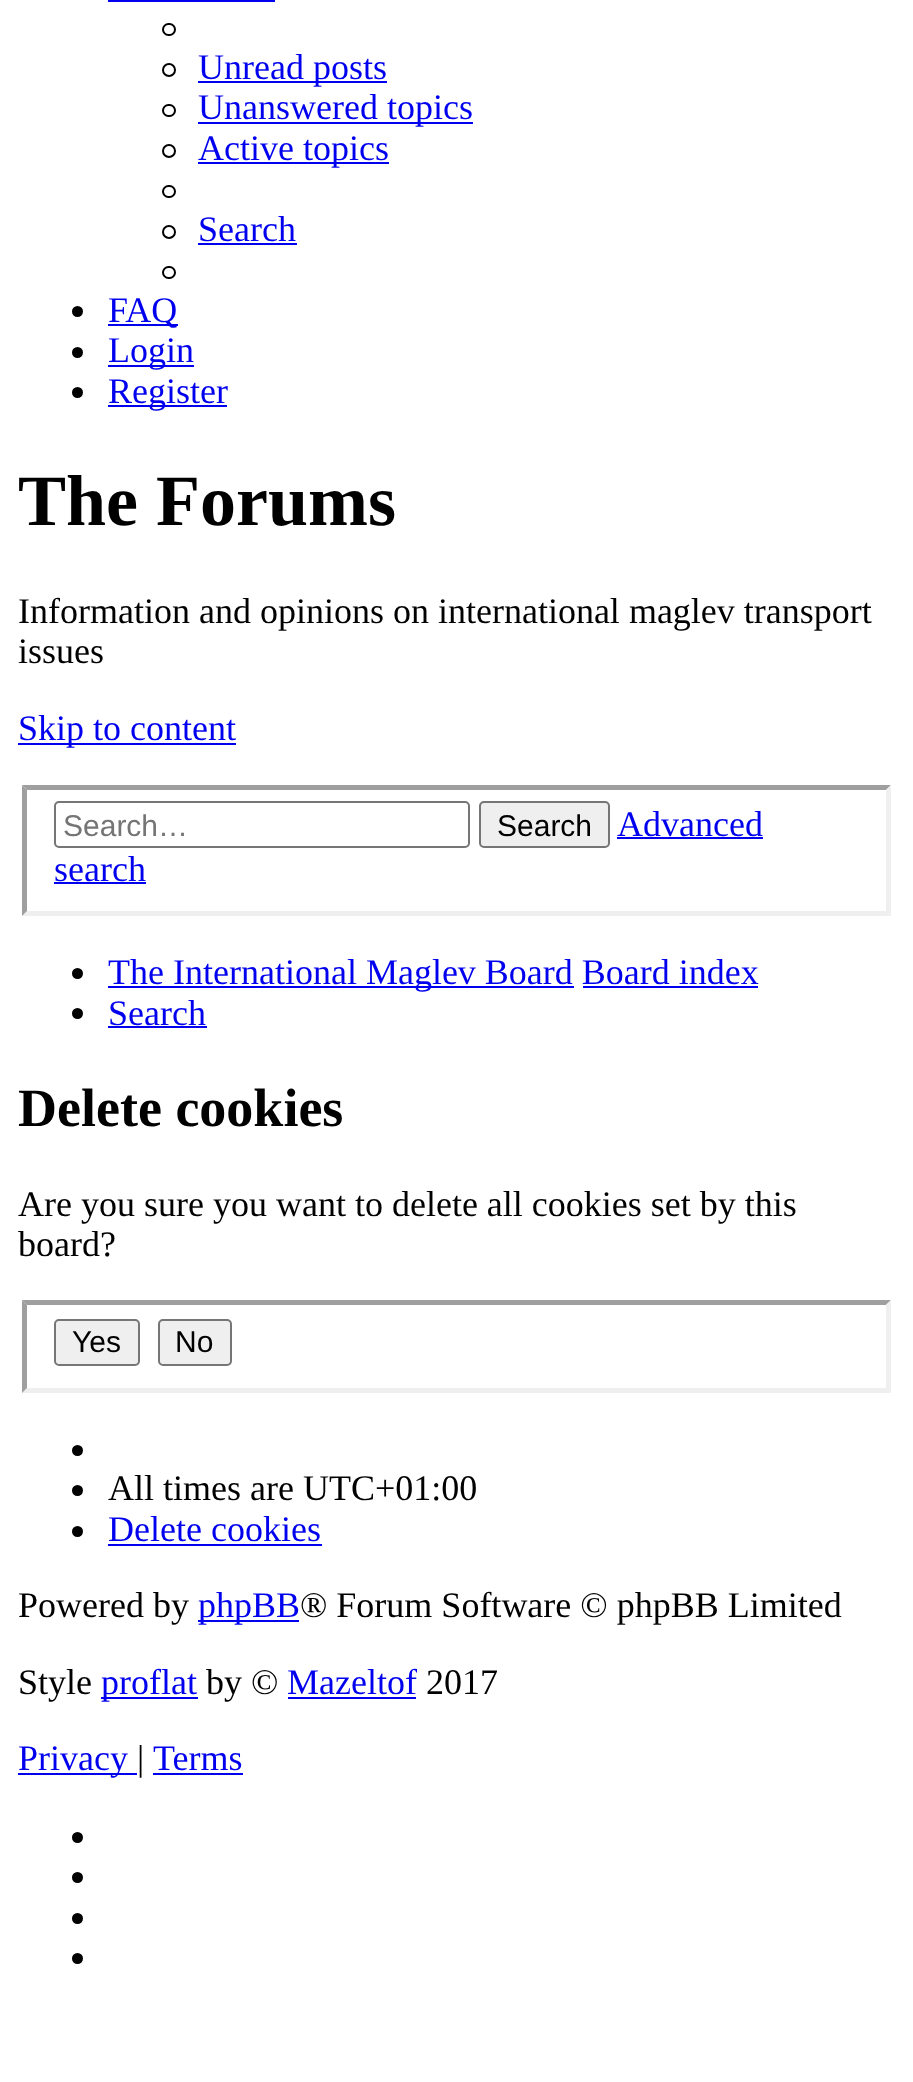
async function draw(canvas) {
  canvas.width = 913
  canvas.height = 2082
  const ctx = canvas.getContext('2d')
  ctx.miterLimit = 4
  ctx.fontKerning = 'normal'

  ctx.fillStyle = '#fff'
  ctx.fillRect(0, 0, 913, 2082)
  ctx.fillStyle = '#00e'
  ctx.fillRect(108, 0, 167, 2)
  ctx.beginPath()
  ctx.roundRect(163, 24, 12, 11, 5.5)
  ctx.strokeStyle = '#000'
  ctx.lineWidth = 2
  ctx.stroke()
  ctx.beginPath()
  ctx.arc(169, 70, 6, 0, 2 * Math.PI)
  ctx.stroke()
  ctx.fillRect(198, 81, 189, 2)
  ctx.font = '36px Liberation Serif'
  ctx.fillText('Unread posts', 198, 79)
  ctx.beginPath()
  ctx.roundRect(163, 105, 12, 11, 5.5)
  ctx.stroke()
  ctx.fillRect(198, 122, 275, 2)
  ctx.fillText('Unanswered topics', 198, 119)
  ctx.beginPath()
  ctx.arc(169, 151, 6, 0, 2 * Math.PI)
  ctx.stroke()
  ctx.fillRect(198, 162, 191, 2)
  ctx.fillText('Active topics', 198, 160)
  ctx.beginPath()
  ctx.roundRect(163, 186, 12, 11, 5.5)
  ctx.stroke()
  ctx.beginPath()
  ctx.arc(169, 232, 6, 0, 2 * Math.PI)
  ctx.stroke()
  ctx.fillText('Search', 198, 241)
  ctx.fillRect(198, 243, 99, 2)
  ctx.beginPath()
  ctx.roundRect(163, 267, 12, 11, 5.5)
  ctx.stroke()
  ctx.fillStyle = '#000'
  ctx.beginPath()
  ctx.arc(77.5, 311.5, 5.5, 0, 2 * Math.PI)
  ctx.fill()
  ctx.fillStyle = '#00e'
  ctx.fillRect(108, 324, 70, 2)
  ctx.fillText('FAQ', 108, 322)
  ctx.fillStyle = '#000'
  ctx.beginPath()
  ctx.arc(77.5, 352.5, 5.5, 0, 2 * Math.PI)
  ctx.fill()
  ctx.fillStyle = '#00e'
  ctx.fillRect(108, 365, 86, 2)
  ctx.fillText('Login', 108, 362)
  ctx.fillStyle = '#000'
  ctx.beginPath()
  ctx.arc(77.5, 392.5, 5.5, 0, 2 * Math.PI)
  ctx.fill()
  ctx.fillStyle = '#00e'
  ctx.fillRect(108, 405, 119, 2)
  ctx.fillText('Register', 108, 403)
  ctx.font = 'bold 72px Liberation Serif'
  ctx.fillStyle = '#000'
  ctx.fillText('The Forums', 18, 525)
  ctx.font = '36px Liberation Serif'
  ctx.fillText('Information and opinions on international maglev transport', 18, 623)
  ctx.fillText('issues', 18, 663)
  ctx.fillStyle = '#00e'
  ctx.fillRect(18, 743, 218, 2)
  ctx.fillText('Skip to content', 18, 740)
  ctx.fillStyle = '#9f9f9f'
  ctx.beginPath()
  ctx.moveTo(22, 785)
  ctx.lineTo(891, 785)
  ctx.lineTo(886, 790)
  ctx.lineTo(27, 790)
  ctx.closePath()
  ctx.fill()
  ctx.fillStyle = '#efefef'
  ctx.beginPath()
  ctx.moveTo(891, 785)
  ctx.lineTo(891, 916)
  ctx.lineTo(886, 911)
  ctx.lineTo(886, 790)
  ctx.closePath()
  ctx.fill()
  ctx.beginPath()
  ctx.moveTo(891, 916)
  ctx.lineTo(22, 916)
  ctx.lineTo(27, 911)
  ctx.lineTo(886, 911)
  ctx.closePath()
  ctx.fill()
  ctx.fillStyle = '#9f9f9f'
  ctx.beginPath()
  ctx.moveTo(22, 916)
  ctx.lineTo(22, 785)
  ctx.lineTo(27, 790)
  ctx.lineTo(27, 911)
  ctx.closePath()
  ctx.fill()
  ctx.beginPath()
  ctx.roundRect(55, 802, 414, 45, 4)
  ctx.strokeStyle = '#767676'
  ctx.stroke()
  ctx.font = '30px Liberation Sans'
  ctx.fillStyle = '#757575'
  ctx.fillText('Search…', 63, 836)
  ctx.fillStyle = '#efefef'
  ctx.beginPath()
  ctx.roundRect(480, 802, 129, 45, 4)
  ctx.fill()
  ctx.stroke()
  ctx.fillStyle = '#000'
  ctx.fillText('Search', 497, 836)
  ctx.font = '36px Liberation Serif'
  ctx.fillStyle = '#00e'
  ctx.fillText('Advanced', 617, 836)
  ctx.fillRect(617, 837, 146, 2)
  ctx.fillText('search', 54, 881)
  ctx.fillRect(54, 882, 92, 2)
  ctx.fillStyle = '#000'
  ctx.beginPath()
  ctx.arc(77.5, 973.5, 5.5, 0, 2 * Math.PI)
  ctx.fill()
  ctx.fillStyle = '#00e'
  ctx.fillRect(108, 986, 466, 2)
  ctx.fillText('The International Maglev Board Board index', 108, 984)
  ctx.fillRect(583, 986, 175, 2)
  ctx.fillStyle = '#000'
  ctx.beginPath()
  ctx.arc(77.5, 1013.5, 5.5, 0, 2 * Math.PI)
  ctx.fill()
  ctx.fillStyle = '#00e'
  ctx.fillText('Search', 108, 1025)
  ctx.fillRect(108, 1026, 99, 2)
  ctx.font = 'bold 54px Liberation Serif'
  ctx.fillStyle = '#000'
  ctx.fillText('Delete cookies', 18, 1126)
  ctx.font = '36px Liberation Serif'
  ctx.fillText('Are you sure you want to delete all cookies set by this', 18, 1216)
  ctx.fillText('board?', 18, 1256)
  ctx.fillStyle = '#9f9f9f'
  ctx.beginPath()
  ctx.moveTo(22, 1300)
  ctx.lineTo(891, 1300)
  ctx.lineTo(886, 1305)
  ctx.lineTo(27, 1305)
  ctx.closePath()
  ctx.fill()
  ctx.fillStyle = '#efefef'
  ctx.beginPath()
  ctx.moveTo(891, 1300)
  ctx.lineTo(891, 1393)
  ctx.lineTo(886, 1388)
  ctx.lineTo(886, 1305)
  ctx.closePath()
  ctx.fill()
  ctx.beginPath()
  ctx.moveTo(891, 1393)
  ctx.lineTo(22, 1393)
  ctx.lineTo(27, 1388)
  ctx.lineTo(886, 1388)
  ctx.closePath()
  ctx.fill()
  ctx.fillStyle = '#9f9f9f'
  ctx.beginPath()
  ctx.moveTo(22, 1393)
  ctx.lineTo(22, 1300)
  ctx.lineTo(27, 1305)
  ctx.lineTo(27, 1388)
  ctx.closePath()
  ctx.fill()
  ctx.fillStyle = '#efefef'
  ctx.beginPath()
  ctx.roundRect(55, 1320, 84, 45, 4)
  ctx.fill()
  ctx.stroke()
  ctx.font = '30px Liberation Sans'
  ctx.fillStyle = '#000'
  ctx.fillText('Yes', 72, 1352)
  ctx.fillStyle = '#efefef'
  ctx.beginPath()
  ctx.roundRect(159, 1320, 72, 45, 4)
  ctx.fill()
  ctx.stroke()
  ctx.fillStyle = '#000'
  ctx.fillText('No', 175, 1352)
  ctx.beginPath()
  ctx.arc(77.5, 1450.5, 5.5, 0, 2 * Math.PI)
  ctx.fill()
  ctx.beginPath()
  ctx.arc(77.5, 1490.5, 5.5, 0, 2 * Math.PI)
  ctx.fill()
  ctx.font = '36px Liberation Serif'
  ctx.fillText('All times are UTC+01:00', 108, 1500)
  ctx.beginPath()
  ctx.arc(77.5, 1531.5, 5.5, 0, 2 * Math.PI)
  ctx.fill()
  ctx.fillStyle = '#00e'
  ctx.fillText('Delete cookies', 108, 1541)
  ctx.fillRect(108, 1544, 214, 2)
  ctx.fillStyle = '#000'
  ctx.fillText('Powered by', 18, 1617)
  ctx.fillStyle = '#00e'
  ctx.fillRect(198, 1620, 101, 2)
  ctx.fillText('phpBB', 198, 1617)
  ctx.fillStyle = '#000'
  ctx.fillText('® Forum Software © phpBB Limited', 300, 1617)
  ctx.fillText('Style', 18, 1694)
  ctx.fillStyle = '#00e'
  ctx.fillRect(101, 1697, 97, 2)
  ctx.fillText('proflat', 101, 1694)
  ctx.fillStyle = '#000'
  ctx.fillText('by ©', 206, 1694)
  ctx.fillStyle = '#00e'
  ctx.fillText('Mazeltof', 287, 1694)
  ctx.fillRect(288, 1697, 128, 2)
  ctx.fillStyle = '#000'
  ctx.fillText('2017', 426, 1694)
  ctx.fillStyle = '#00e'
  ctx.fillRect(18, 1773, 119, 2)
  ctx.fillText('Privacy', 18, 1770)
  ctx.fillStyle = '#000'
  ctx.fillText('|', 137, 1770)
  ctx.fillStyle = '#00e'
  ctx.fillText('Terms', 153, 1770)
  ctx.fillRect(153, 1773, 90, 2)
  ctx.fillStyle = '#000'
  ctx.beginPath()
  ctx.arc(77.5, 1837.5, 5.5, 0, 2 * Math.PI)
  ctx.fill()
  ctx.beginPath()
  ctx.arc(77.5, 1877.5, 5.5, 0, 2 * Math.PI)
  ctx.fill()
  ctx.beginPath()
  ctx.arc(77.5, 1918.5, 5.5, 0, 2 * Math.PI)
  ctx.fill()
  ctx.beginPath()
  ctx.arc(77.5, 1958.5, 5.5, 0, 2 * Math.PI)
  ctx.fill()
}

draw(document.querySelector('canvas'))
